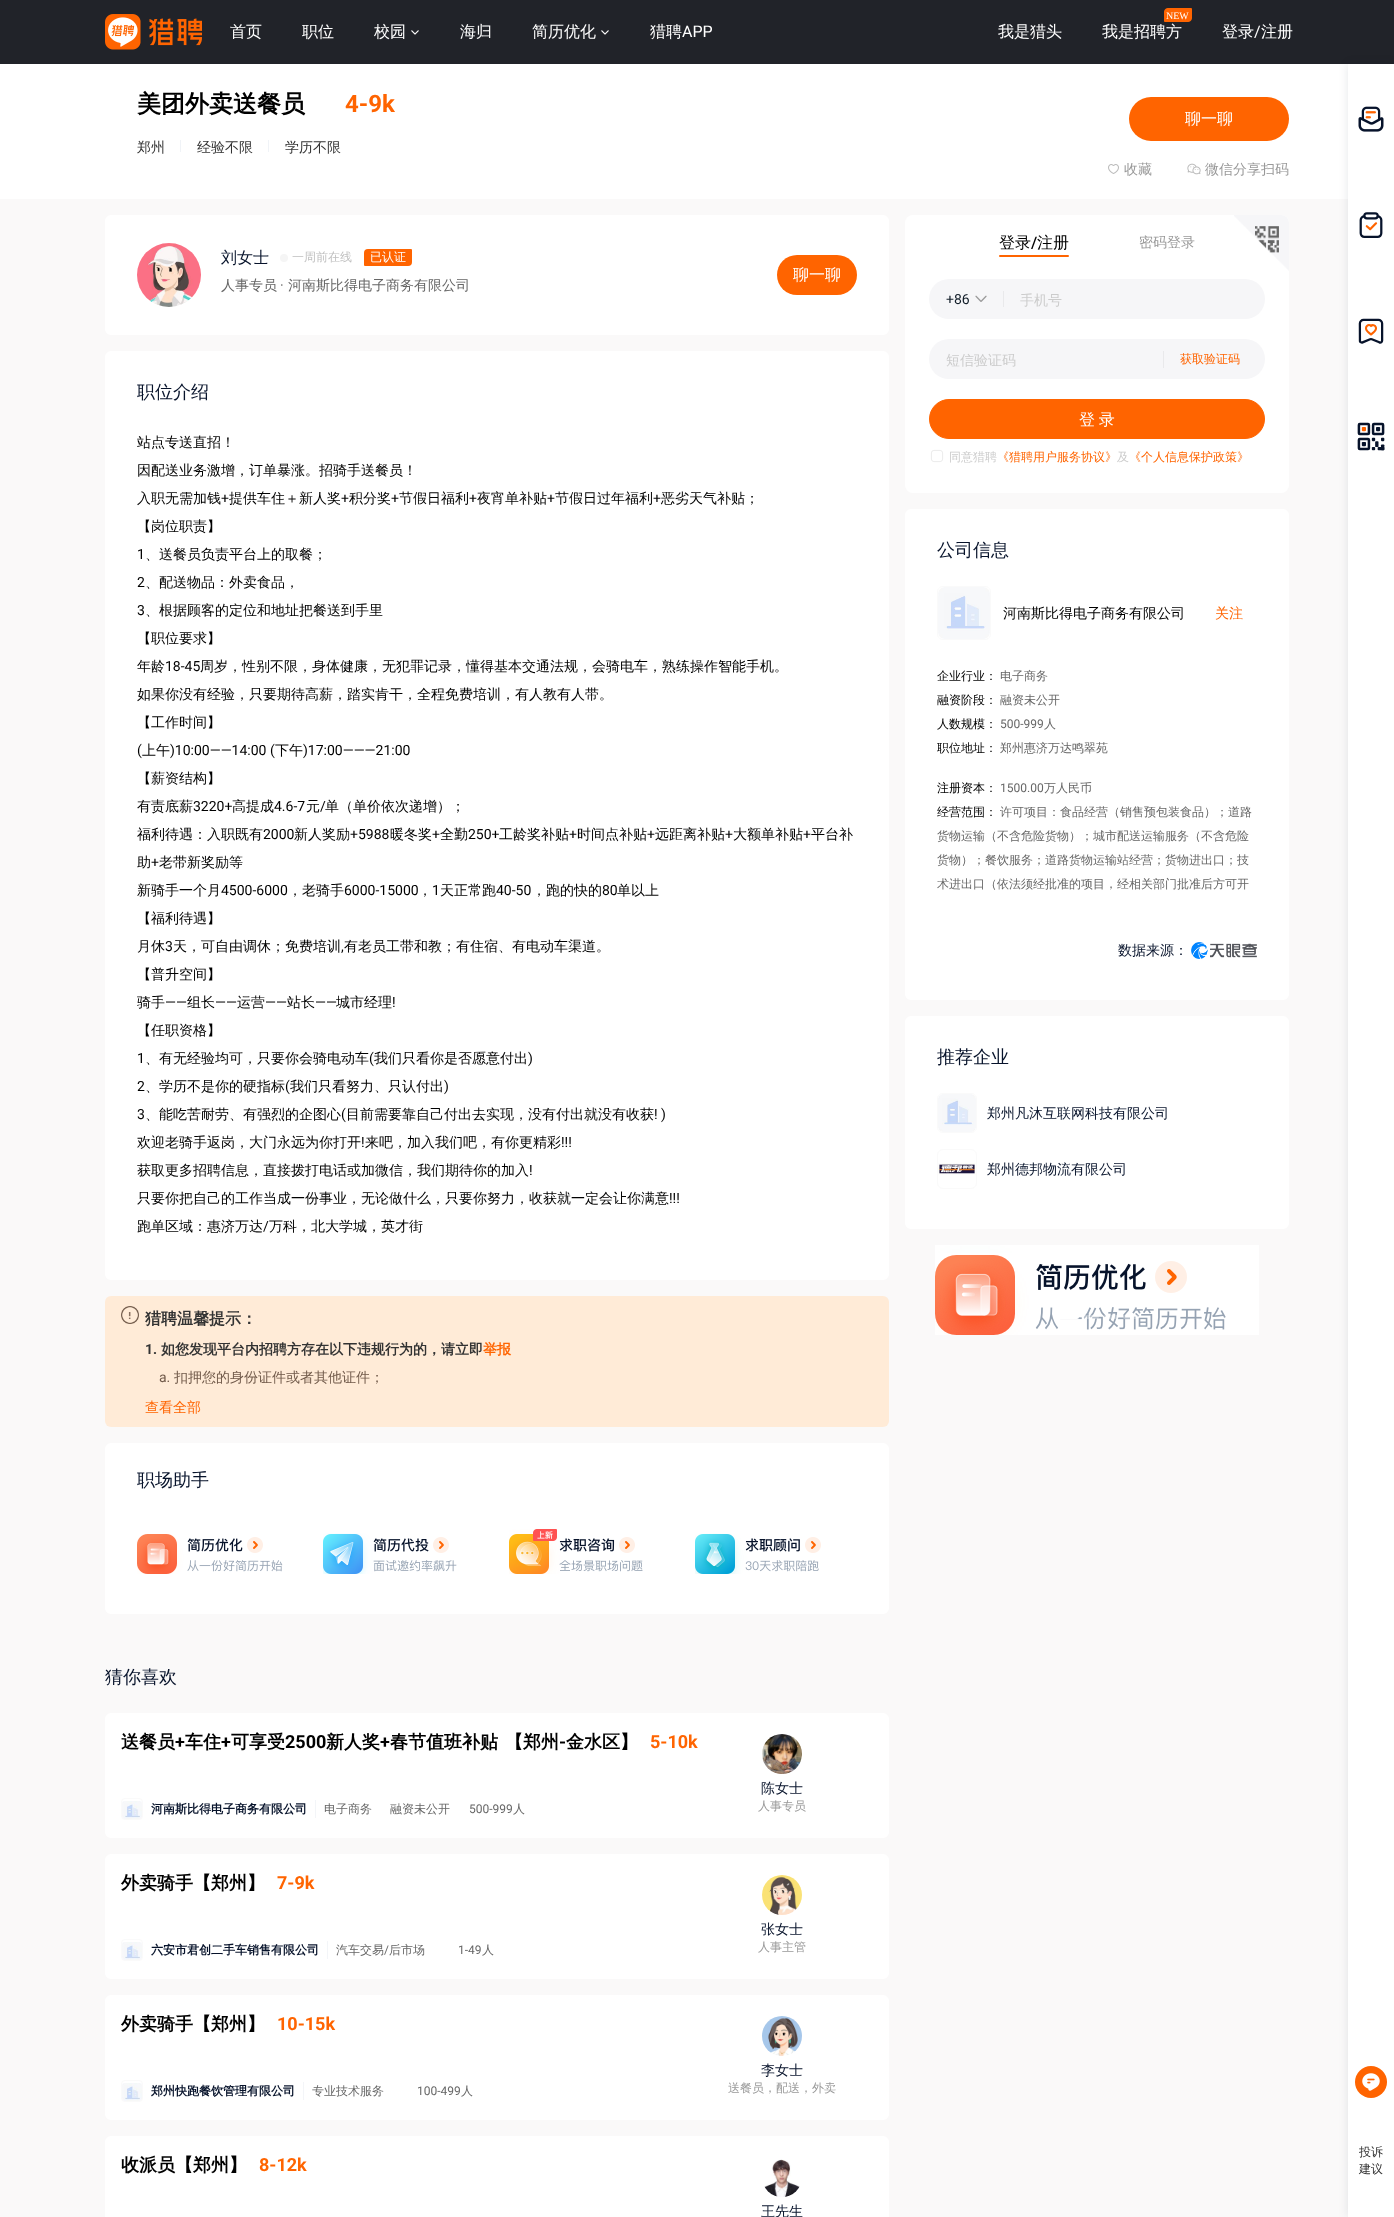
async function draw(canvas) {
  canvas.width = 1394
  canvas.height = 2217
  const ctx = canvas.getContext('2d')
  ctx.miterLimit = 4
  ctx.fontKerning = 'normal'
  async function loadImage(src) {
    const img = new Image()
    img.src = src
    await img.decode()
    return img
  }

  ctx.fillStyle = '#faf9f9'
  ctx.fillRect(0, 0, 1394, 2217)
  ctx.fillStyle = '#212329'
  ctx.fillRect(0, 0, 1394, 64)
  ctx.drawImage(await loadImage('image0.png'), 105, 14, 97, 36)
  ctx.font = '500 16px WenQuanYi Zen Hei'
  ctx.fillStyle = '#fff'
  ctx.fillText('首页', 230, 37)
  ctx.fillText('职位', 302, 37)
  ctx.drawImage(await loadImage('image1.png'), 411, 30, 8, 5)
  ctx.fillText('校园', 374, 37)
  ctx.fillText('海归', 460, 37)
  ctx.drawImage(await loadImage('image1.png'), 601, 30, 8, 5)
  ctx.fillText('简历优化', 532, 37)
  ctx.fillText('猎聘', 650, 37)
  ctx.font = '16px Roboto'
  ctx.fillText('APP', 682, 37)
  ctx.font = '500 16px WenQuanYi Zen Hei'
  ctx.fillText('我是猎头', 998, 37)
  ctx.drawImage(await loadImage('image2.png'), 1164, 8, 28, 14)
  ctx.font = '10px Liberation Serif'
  ctx.fillText('NEW', 1166, 19)
  ctx.font = '500 16px WenQuanYi Zen Hei'
  ctx.fillText('我是招聘方', 1102, 37)
  ctx.fillText('登录', 1222, 37)
  ctx.font = '16px Roboto'
  ctx.fillText('/', 1254, 37)
  ctx.font = '500 16px WenQuanYi Zen Hei'
  ctx.fillText('注册', 1261, 37)
  ctx.fillRect(0, 64, 1348, 115)
  ctx.font = 'bold 24px WenQuanYi Zen Hei'
  ctx.fillStyle = '#000'
  ctx.fillText('美团外卖送餐员', 137, 112)
  ctx.font = 'bold 24px Roboto'
  ctx.fillStyle = '#ff6400'
  ctx.fillText('4-9k', 345, 112)
  ctx.font = '500 14px WenQuanYi Zen Hei'
  ctx.fillStyle = '#333'
  ctx.fillText('郑州', 137, 152)
  ctx.fillStyle = '#f0f3f7'
  ctx.fillRect(180, 140, 1, 12)
  ctx.fillStyle = '#333'
  ctx.fillText('经验不限', 197, 152)
  ctx.fillStyle = '#f0f3f7'
  ctx.fillRect(268, 140, 1, 12)
  ctx.fillStyle = '#333'
  ctx.fillText('学历不限', 285, 152)
  ctx.fillStyle = '#ff6400'
  ctx.beginPath()
  ctx.roundRect(1129, 97, 160, 44, 22)
  ctx.fill()
  ctx.font = '500 16px WenQuanYi Zen Hei'
  ctx.fillStyle = '#fff'
  ctx.fillText('聊一聊', 1185, 124)
  ctx.drawImage(await loadImage('image3.png'), 1108, 164, 11, 10)
  ctx.font = '500 14px WenQuanYi Zen Hei'
  ctx.fillStyle = '#999'
  ctx.fillText('收藏', 1124, 174)
  ctx.drawImage(await loadImage('image4.png'), 1187, 163, 14, 12)
  ctx.fillText('微信分享扫码', 1205, 174)
  ctx.fillStyle = '#fff'
  ctx.fillRect(0, 179, 1348, 20)
  ctx.beginPath()
  ctx.roundRect(105, 215, 784, 120, 6)
  ctx.fill()
  ctx.drawImage(await loadImage('image5.png'), 137, 243, 64, 64)
  ctx.font = '500 16px WenQuanYi Zen Hei'
  ctx.fillStyle = '#07132b'
  ctx.fillText('刘女士', 221, 263)
  ctx.fillStyle = '#f5f5f5'
  ctx.beginPath()
  ctx.arc(284, 258, 4, 0, 2 * Math.PI)
  ctx.fill()
  ctx.font = '500 12px WenQuanYi Zen Hei'
  ctx.fillStyle = '#bfbfbf'
  ctx.fillText('一周前在线', 292, 261)
  ctx.fillStyle = '#ff6400'
  ctx.beginPath()
  ctx.roundRect(364, 249, 48, 17, [4, 1, 4, 1])
  ctx.fill()
  ctx.fillStyle = '#fff'
  ctx.fillText('已认证', 370, 261)
  ctx.font = '500 14px WenQuanYi Zen Hei'
  ctx.fillStyle = '#666'
  ctx.fillText('人事专员', 221, 290)
  ctx.font = '14px Roboto'
  ctx.fillText('·', 280, 290)
  ctx.font = '500 14px WenQuanYi Zen Hei'
  ctx.fillText('河南斯比得电子商务有限公司', 288, 290)
  ctx.fillStyle = '#ff6400'
  ctx.beginPath()
  ctx.roundRect(777, 255, 80, 40, 20)
  ctx.fill()
  ctx.font = '500 16px WenQuanYi Zen Hei'
  ctx.fillStyle = '#fff'
  ctx.fillText('聊一聊', 793, 280)
  ctx.beginPath()
  ctx.roundRect(105, 351, 784, 929, 6)
  ctx.fill()
  ctx.font = '500 18px WenQuanYi Zen Hei'
  ctx.fillStyle = '#07132b'
  ctx.fillText('职位介绍', 137, 398)
  ctx.font = '500 14px WenQuanYi Zen Hei'
  ctx.fillStyle = '#000'
  ctx.fillText('站点专送直招！', 137, 447)
  ctx.fillText('因配送业务激增，订单暴涨。招骑手送餐员！', 137, 475)
  ctx.fillText('入职无需加钱', 137, 503)
  ctx.font = '14px Roboto'
  ctx.fillText('+', 221, 503)
  ctx.font = '500 14px WenQuanYi Zen Hei'
  ctx.fillText('提供车住＋新人奖', 229, 503)
  ctx.font = '14px Roboto'
  ctx.fillText('+', 341, 503)
  ctx.font = '500 14px WenQuanYi Zen Hei'
  ctx.fillText('积分奖', 349, 503)
  ctx.font = '14px Roboto'
  ctx.fillText('+', 391, 503)
  ctx.font = '500 14px WenQuanYi Zen Hei'
  ctx.fillText('节假日福利', 399, 503)
  ctx.font = '14px Roboto'
  ctx.fillText('+', 469, 503)
  ctx.font = '500 14px WenQuanYi Zen Hei'
  ctx.fillText('夜宵单补贴', 477, 503)
  ctx.font = '14px Roboto'
  ctx.fillText('+', 547, 503)
  ctx.font = '500 14px WenQuanYi Zen Hei'
  ctx.fillText('节假日过年福利', 555, 503)
  ctx.font = '14px Roboto'
  ctx.fillText('+', 653, 503)
  ctx.font = '500 14px WenQuanYi Zen Hei'
  ctx.fillText('恶劣天气补贴；', 661, 503)
  ctx.fillText('【岗位职责】', 137, 531)
  ctx.font = '14px Roboto'
  ctx.fillText('1', 137, 559)
  ctx.font = '500 14px WenQuanYi Zen Hei'
  ctx.fillText('、送餐员负责平台上的取餐；', 145, 559)
  ctx.font = '14px Roboto'
  ctx.fillText('2', 137, 587)
  ctx.font = '500 14px WenQuanYi Zen Hei'
  ctx.fillText('、配送物品：外卖食品，', 145, 587)
  ctx.font = '14px Roboto'
  ctx.fillText('3', 137, 615)
  ctx.font = '500 14px WenQuanYi Zen Hei'
  ctx.fillText('、根据顾客的定位和地址把餐送到手里', 145, 615)
  ctx.fillText('【职位要求】', 137, 643)
  ctx.fillText('年龄', 137, 671)
  ctx.font = '14px Roboto'
  ctx.fillText('18-45', 165, 671)
  ctx.font = '500 14px WenQuanYi Zen Hei'
  ctx.fillText('周岁，性别不限，身体健康，无犯罪记录，懂得基本交通法规，会骑电车，熟练操作智能手机。', 200, 671)
  ctx.fillText('如果你没有经验，只要期待高薪，踏实肯干，全程免费培训，有人教有人带。', 137, 699)
  ctx.fillText('【工作时间】', 137, 727)
  ctx.font = '14px Roboto'
  ctx.fillText('(', 137, 755)
  ctx.font = '500 14px WenQuanYi Zen Hei'
  ctx.fillText('上午', 142, 755)
  ctx.font = '14px Roboto'
  ctx.fillText(')10:00——14:00 (', 170, 755)
  ctx.font = '500 14px WenQuanYi Zen Hei'
  ctx.fillText('下午', 275, 755)
  ctx.font = '14px Roboto'
  ctx.fillText(')17:00———21:00', 303, 755)
  ctx.font = '500 14px WenQuanYi Zen Hei'
  ctx.fillText('【薪资结构】', 137, 783)
  ctx.fillText('有责底薪', 137, 811)
  ctx.font = '14px Roboto'
  ctx.fillText('3220+', 193, 811)
  ctx.font = '500 14px WenQuanYi Zen Hei'
  ctx.fillText('高提成', 232, 811)
  ctx.font = '14px Roboto'
  ctx.fillText('4.6-7', 274, 811)
  ctx.font = '500 14px WenQuanYi Zen Hei'
  ctx.fillText('元', 306, 811)
  ctx.font = '14px Roboto'
  ctx.fillText('/', 320, 811)
  ctx.font = '500 14px WenQuanYi Zen Hei'
  ctx.fillText('单（单价依次递增）；', 325, 811)
  ctx.fillText('福利待遇：入职既有', 137, 839)
  ctx.font = '14px Roboto'
  ctx.fillText('2000', 263, 839)
  ctx.font = '500 14px WenQuanYi Zen Hei'
  ctx.fillText('新人奖励', 294, 839)
  ctx.font = '14px Roboto'
  ctx.fillText('+5988', 350, 839)
  ctx.font = '500 14px WenQuanYi Zen Hei'
  ctx.fillText('暖冬奖', 390, 839)
  ctx.font = '14px Roboto'
  ctx.fillText('+', 432, 839)
  ctx.font = '500 14px WenQuanYi Zen Hei'
  ctx.fillText('全勤', 440, 839)
  ctx.font = '14px Roboto'
  ctx.fillText('250+', 468, 839)
  ctx.font = '500 14px WenQuanYi Zen Hei'
  ctx.fillText('工龄奖补贴', 499, 839)
  ctx.font = '14px Roboto'
  ctx.fillText('+', 569, 839)
  ctx.font = '500 14px WenQuanYi Zen Hei'
  ctx.fillText('时间点补贴', 577, 839)
  ctx.font = '14px Roboto'
  ctx.fillText('+', 647, 839)
  ctx.font = '500 14px WenQuanYi Zen Hei'
  ctx.fillText('远距离补贴', 655, 839)
  ctx.font = '14px Roboto'
  ctx.fillText('+', 725, 839)
  ctx.font = '500 14px WenQuanYi Zen Hei'
  ctx.fillText('大额单补贴', 733, 839)
  ctx.font = '14px Roboto'
  ctx.fillText('+', 803, 839)
  ctx.font = '500 14px WenQuanYi Zen Hei'
  ctx.fillText('平台补', 811, 839)
  ctx.fillText('助', 137, 867)
  ctx.font = '14px Roboto'
  ctx.fillText('+', 151, 867)
  ctx.font = '500 14px WenQuanYi Zen Hei'
  ctx.fillText('老带新奖励等', 159, 867)
  ctx.fillText('新骑手一个月', 137, 895)
  ctx.font = '14px Roboto'
  ctx.fillText('4500-6000', 221, 895)
  ctx.font = '500 14px WenQuanYi Zen Hei'
  ctx.fillText('，老骑手', 288, 895)
  ctx.font = '14px Roboto'
  ctx.fillText('6000-15000', 344, 895)
  ctx.font = '500 14px WenQuanYi Zen Hei'
  ctx.fillText('，', 418, 895)
  ctx.font = '14px Roboto'
  ctx.fillText('1', 432, 895)
  ctx.font = '500 14px WenQuanYi Zen Hei'
  ctx.fillText('天正常跑', 440, 895)
  ctx.font = '14px Roboto'
  ctx.fillText('40-50', 496, 895)
  ctx.font = '500 14px WenQuanYi Zen Hei'
  ctx.fillText('，跑的快的', 532, 895)
  ctx.font = '14px Roboto'
  ctx.fillText('80', 602, 895)
  ctx.font = '500 14px WenQuanYi Zen Hei'
  ctx.fillText('单以上', 617, 895)
  ctx.fillText('【福利待遇】', 137, 923)
  ctx.fillText('月休', 137, 951)
  ctx.font = '14px Roboto'
  ctx.fillText('3', 165, 951)
  ctx.font = '500 14px WenQuanYi Zen Hei'
  ctx.fillText('天，可自由调休；免费培训', 173, 951)
  ctx.font = '14px Roboto'
  ctx.fillText(',', 341, 951)
  ctx.font = '500 14px WenQuanYi Zen Hei'
  ctx.fillText('有老员工带和教；有住宿、有电动车渠道。', 344, 951)
  ctx.fillText('【普升空间】', 137, 979)
  ctx.fillText('骑手', 137, 1007)
  ctx.font = '14px Roboto'
  ctx.fillText('——', 165, 1007)
  ctx.font = '500 14px WenQuanYi Zen Hei'
  ctx.fillText('组长', 187, 1007)
  ctx.font = '14px Roboto'
  ctx.fillText('——', 215, 1007)
  ctx.font = '500 14px WenQuanYi Zen Hei'
  ctx.fillText('运营', 237, 1007)
  ctx.font = '14px Roboto'
  ctx.fillText('——', 265, 1007)
  ctx.font = '500 14px WenQuanYi Zen Hei'
  ctx.fillText('站长', 287, 1007)
  ctx.font = '14px Roboto'
  ctx.fillText('——', 315, 1007)
  ctx.font = '500 14px WenQuanYi Zen Hei'
  ctx.fillText('城市经理', 336, 1007)
  ctx.font = '14px Roboto'
  ctx.fillText('!', 392, 1007)
  ctx.font = '500 14px WenQuanYi Zen Hei'
  ctx.fillText('【任职资格】', 137, 1035)
  ctx.font = '14px Roboto'
  ctx.fillText('1', 137, 1063)
  ctx.font = '500 14px WenQuanYi Zen Hei'
  ctx.fillText('、有无经验均可，只要你会骑电动车', 145, 1063)
  ctx.font = '14px Roboto'
  ctx.fillText('(', 369, 1063)
  ctx.font = '500 14px WenQuanYi Zen Hei'
  ctx.fillText('我们只看你是否愿意付出', 374, 1063)
  ctx.font = '14px Roboto'
  ctx.fillText(')', 528, 1063)
  ctx.fillText('2', 137, 1091)
  ctx.font = '500 14px WenQuanYi Zen Hei'
  ctx.fillText('、学历不是你的硬指标', 145, 1091)
  ctx.font = '14px Roboto'
  ctx.fillText('(', 285, 1091)
  ctx.font = '500 14px WenQuanYi Zen Hei'
  ctx.fillText('我们只看努力、只认付出', 290, 1091)
  ctx.font = '14px Roboto'
  ctx.fillText(')', 444, 1091)
  ctx.fillText('3', 137, 1119)
  ctx.font = '500 14px WenQuanYi Zen Hei'
  ctx.fillText('、能吃苦耐劳、有强烈的企图心', 145, 1119)
  ctx.font = '14px Roboto'
  ctx.fillText('(', 341, 1119)
  ctx.font = '500 14px WenQuanYi Zen Hei'
  ctx.fillText('目前需要靠自己付出去实现，没有付出就没有收获', 346, 1119)
  ctx.font = '14px Roboto'
  ctx.fillText('! )', 654, 1119)
  ctx.font = '500 14px WenQuanYi Zen Hei'
  ctx.fillText('欢迎老骑手返岗，大门永远为你打开', 137, 1147)
  ctx.font = '14px Roboto'
  ctx.fillText('!', 361, 1147)
  ctx.font = '500 14px WenQuanYi Zen Hei'
  ctx.fillText('来吧，加入我们吧，有你更精彩', 365, 1147)
  ctx.font = '14px Roboto'
  ctx.fillText('!!!', 561, 1147)
  ctx.font = '500 14px WenQuanYi Zen Hei'
  ctx.fillText('获取更多招聘信息，直接拨打电话或加微信，我们期待你的加入', 137, 1175)
  ctx.font = '14px Roboto'
  ctx.fillText('!', 529, 1175)
  ctx.font = '500 14px WenQuanYi Zen Hei'
  ctx.fillText('只要你把自己的工作当成一份事业，无论做什么，只要你努力，收获就一定会让你满意', 137, 1203)
  ctx.font = '14px Roboto'
  ctx.fillText('!!!', 669, 1203)
  ctx.font = '500 14px WenQuanYi Zen Hei'
  ctx.fillText('跑单区域：惠济万达', 137, 1231)
  ctx.font = '14px Roboto'
  ctx.fillText('/', 263, 1231)
  ctx.font = '500 14px WenQuanYi Zen Hei'
  ctx.fillText('万科，北大学城，英才街', 269, 1231)
  ctx.fillStyle = '#ffebd7'
  ctx.beginPath()
  ctx.roundRect(105, 1296, 784, 131, 6)
  ctx.fill()
  ctx.drawImage(await loadImage('image6.png'), 121, 1306, 18, 18)
  ctx.font = 'bold 16px WenQuanYi Zen Hei'
  ctx.fillStyle = '#333'
  ctx.fillText('猎聘温馨提示：', 145, 1324)
  ctx.font = 'bold 14px Roboto'
  ctx.fillText('1.', 145, 1354)
  ctx.font = 'bold 14px WenQuanYi Zen Hei'
  ctx.fillText('如您发现平台内招聘方存在以下违规行为的，请立即', 161, 1354)
  ctx.fillStyle = '#ff6400'
  ctx.fillText('举报', 483, 1354)
  ctx.font = '14px Roboto'
  ctx.fillStyle = '#715a4a'
  ctx.fillText('a.', 159, 1382)
  ctx.font = '500 14px WenQuanYi Zen Hei'
  ctx.fillText('扣押您的身份证件或者其他证件；', 174, 1382)
  ctx.fillStyle = '#ff6400'
  ctx.fillText('查看全部', 145, 1412)
  ctx.fillStyle = '#fff'
  ctx.beginPath()
  ctx.roundRect(105, 1443, 784, 171, 6)
  ctx.fill()
  ctx.font = '500 18px WenQuanYi Zen Hei'
  ctx.fillStyle = '#07132b'
  ctx.fillText('职场助手', 137, 1486)
  ctx.drawImage(await loadImage('image7.png'), 137, 1534, 146, 40)
  ctx.drawImage(await loadImage('image8.png'), 323, 1533, 134, 41)
  ctx.drawImage(await loadImage('image9.png'), 509, 1529, 134, 45)
  ctx.drawImage(await loadImage('image10.png'), 695, 1533, 126, 41)
  ctx.fillText('猜你喜欢', 105, 1683)
  ctx.fillStyle = '#fff'
  ctx.beginPath()
  ctx.roundRect(105, 1713, 784, 125, 6)
  ctx.fill()
  ctx.font = 'bold 18px WenQuanYi Zen Hei'
  ctx.fillStyle = '#000'
  ctx.fillText('送餐员', 121, 1748)
  ctx.font = 'bold 18px Roboto'
  ctx.fillText('+', 175, 1748)
  ctx.font = 'bold 18px WenQuanYi Zen Hei'
  ctx.fillText('车住', 185, 1748)
  ctx.font = 'bold 18px Roboto'
  ctx.fillText('+', 221, 1748)
  ctx.font = 'bold 18px WenQuanYi Zen Hei'
  ctx.fillText('可享受', 231, 1748)
  ctx.font = 'bold 18px Roboto'
  ctx.fillText('2500', 285, 1748)
  ctx.font = 'bold 18px WenQuanYi Zen Hei'
  ctx.fillText('新人奖', 326, 1748)
  ctx.font = 'bold 18px Roboto'
  ctx.fillText('+', 380, 1748)
  ctx.font = 'bold 18px WenQuanYi Zen Hei'
  ctx.fillText('春节值班补贴', 390, 1748)
  ctx.fillText('【郑州', 505, 1748)
  ctx.font = 'bold 18px Roboto'
  ctx.fillText('-', 559, 1748)
  ctx.font = 'bold 18px WenQuanYi Zen Hei'
  ctx.fillText('金水区', 566, 1748)
  ctx.fillText('】', 620, 1748)
  ctx.font = 'bold 18px Roboto'
  ctx.fillStyle = '#ff6400'
  ctx.fillText('5-10k', 650, 1748)
  ctx.beginPath()
  ctx.roundRect(121.5, 1798.5, 21, 21, 3.5)
  ctx.strokeStyle = '#fafafa'
  ctx.stroke()
  ctx.drawImage(await loadImage('image11.png'), 122, 1801, 20, 18)
  ctx.font = 'bold 12px WenQuanYi Zen Hei'
  ctx.fillStyle = '#07132b'
  ctx.fillText('河南斯比得电子商务有限公司', 151, 1813)
  ctx.fillStyle = '#f3f5f8'
  ctx.fillRect(315, 1800, 1, 18)
  ctx.font = '500 12px WenQuanYi Zen Hei'
  ctx.fillStyle = '#666'
  ctx.fillText('电子商务', 324, 1813)
  ctx.fillText('融资未公开', 390, 1813)
  ctx.font = '12px Roboto'
  ctx.fillText('500-999', 469, 1813)
  ctx.font = '500 12px WenQuanYi Zen Hei'
  ctx.fillText('人', 513, 1813)
  ctx.drawImage(await loadImage('image12.png'), 762, 1734, 40, 40)
  ctx.font = '500 14px WenQuanYi Zen Hei'
  ctx.fillStyle = '#07132b'
  ctx.fillText('陈女士', 761, 1793)
  ctx.font = '500 12px WenQuanYi Zen Hei'
  ctx.fillStyle = '#999'
  ctx.fillText('人事专员', 758, 1810)
  ctx.fillStyle = '#fff'
  ctx.beginPath()
  ctx.roundRect(105, 1854, 784, 125, 6)
  ctx.fill()
  ctx.font = 'bold 18px WenQuanYi Zen Hei'
  ctx.fillStyle = '#000'
  ctx.fillText('外卖骑手', 121, 1889)
  ctx.fillText('【郑州', 193, 1889)
  ctx.fillText('】', 247, 1889)
  ctx.font = 'bold 18px Roboto'
  ctx.fillStyle = '#ff6400'
  ctx.fillText('7-9k', 277, 1889)
  ctx.beginPath()
  ctx.roundRect(121.5, 1939.5, 21, 21, 3.5)
  ctx.stroke()
  ctx.drawImage(await loadImage('image11.png'), 122, 1942, 20, 18)
  ctx.font = 'bold 12px WenQuanYi Zen Hei'
  ctx.fillStyle = '#07132b'
  ctx.fillText('六安市君创二手车销售有限公司', 151, 1954)
  ctx.fillStyle = '#f3f5f8'
  ctx.fillRect(327, 1941, 1, 18)
  ctx.font = '500 12px WenQuanYi Zen Hei'
  ctx.fillStyle = '#666'
  ctx.fillText('汽车交易', 336, 1954)
  ctx.font = '12px Roboto'
  ctx.fillText('/', 384, 1954)
  ctx.font = '500 12px WenQuanYi Zen Hei'
  ctx.fillText('后市场', 389, 1954)
  ctx.font = '12px Roboto'
  ctx.fillText('1-49', 458, 1954)
  ctx.font = '500 12px WenQuanYi Zen Hei'
  ctx.fillText('人', 482, 1954)
  ctx.drawImage(await loadImage('image13.png'), 762, 1875, 40, 40)
  ctx.font = '500 14px WenQuanYi Zen Hei'
  ctx.fillStyle = '#07132b'
  ctx.fillText('张女士', 761, 1934)
  ctx.font = '500 12px WenQuanYi Zen Hei'
  ctx.fillStyle = '#999'
  ctx.fillText('人事主管', 758, 1951)
  ctx.fillStyle = '#fff'
  ctx.beginPath()
  ctx.roundRect(105, 1995, 784, 125, 6)
  ctx.fill()
  ctx.font = 'bold 18px WenQuanYi Zen Hei'
  ctx.fillStyle = '#000'
  ctx.fillText('外卖骑手', 121, 2030)
  ctx.fillText('【郑州', 193, 2030)
  ctx.fillText('】', 247, 2030)
  ctx.font = 'bold 18px Roboto'
  ctx.fillStyle = '#ff6400'
  ctx.fillText('10-15k', 277, 2030)
  ctx.beginPath()
  ctx.roundRect(121.5, 2080.5, 21, 21, 3.5)
  ctx.stroke()
  ctx.drawImage(await loadImage('image11.png'), 122, 2083, 20, 18)
  ctx.font = 'bold 12px WenQuanYi Zen Hei'
  ctx.fillStyle = '#07132b'
  ctx.fillText('郑州快跑餐饮管理有限公司', 151, 2095)
  ctx.fillStyle = '#f3f5f8'
  ctx.fillRect(303, 2082, 1, 18)
  ctx.font = '500 12px WenQuanYi Zen Hei'
  ctx.fillStyle = '#666'
  ctx.fillText('专业技术服务', 312, 2095)
  ctx.font = '12px Roboto'
  ctx.fillText('100-499', 417, 2095)
  ctx.font = '500 12px WenQuanYi Zen Hei'
  ctx.fillText('人', 461, 2095)
  ctx.drawImage(await loadImage('image14.png'), 762, 2016, 40, 40)
  ctx.font = '500 14px WenQuanYi Zen Hei'
  ctx.fillStyle = '#07132b'
  ctx.fillText('李女士', 761, 2075)
  ctx.font = '500 12px WenQuanYi Zen Hei'
  ctx.fillStyle = '#999'
  ctx.fillText('送餐员，配送，外卖', 728, 2092)
  ctx.fillStyle = '#fff'
  ctx.beginPath()
  ctx.roundRect(105, 2136, 784, 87, 6)
  ctx.fill()
  ctx.font = 'bold 18px WenQuanYi Zen Hei'
  ctx.fillStyle = '#000'
  ctx.fillText('收派员', 121, 2171)
  ctx.fillText('【郑州', 175, 2171)
  ctx.fillText('】', 229, 2171)
  ctx.font = 'bold 18px Roboto'
  ctx.fillStyle = '#ff6400'
  ctx.fillText('8-12k', 259, 2171)
  ctx.drawImage(await loadImage('image15.png'), 764, 2159, 36, 38)
  ctx.font = '500 14px WenQuanYi Zen Hei'
  ctx.fillStyle = '#07132b'
  ctx.fillText('王先生', 761, 2216)
  ctx.fillStyle = '#fff'
  ctx.beginPath()
  ctx.roundRect(905, 215, 384, 278, 8)
  ctx.fill()
  ctx.font = '500 16px WenQuanYi Zen Hei'
  ctx.fillStyle = '#000'
  ctx.fillText('登录', 999, 248)
  ctx.font = '500 16px Roboto'
  ctx.fillText('/', 1031, 248)
  ctx.font = '500 16px WenQuanYi Zen Hei'
  ctx.fillText('注册', 1037, 248)
  ctx.fillStyle = '#ff6400'
  ctx.beginPath()
  ctx.roundRect(999, 255, 70, 2, 1)
  ctx.fill()
  ctx.font = '500 14px WenQuanYi Zen Hei'
  ctx.fillStyle = '#999'
  ctx.fillText('密码登录', 1139, 247)
  ctx.drawImage(await loadImage('image16.png'), 1234, 215, 55, 56)
  ctx.fillStyle = '#f6f6f8'
  ctx.beginPath()
  ctx.roundRect(929, 279, 336, 40, 20)
  ctx.fill()
  ctx.font = '14px Roboto'
  ctx.fillStyle = '#121e29'
  ctx.fillText('+86', 946, 304)
  ctx.drawImage(await loadImage('image17.png'), 975, 295, 12, 7)
  ctx.fillStyle = '#e9e9eb'
  ctx.fillRect(1003, 291, 1, 16)
  ctx.font = '500 14px WenQuanYi Zen Hei'
  ctx.fillStyle = '#ccc'
  ctx.fillText('手机号', 1020, 305)
  ctx.fillStyle = '#f6f6f8'
  ctx.beginPath()
  ctx.roundRect(929, 339, 336, 40, 20)
  ctx.fill()
  ctx.fillStyle = '#ccc'
  ctx.fillText('短信验证码', 946, 365)
  ctx.fillStyle = '#e9e9eb'
  ctx.fillRect(1163, 351, 1, 17)
  ctx.font = '500 12px WenQuanYi Zen Hei'
  ctx.fillStyle = '#ff6400'
  ctx.fillText('获取验证码', 1180, 363)
  ctx.beginPath()
  ctx.roundRect(929.5, 399.5, 335, 39, 19.5)
  ctx.fill()
  ctx.strokeStyle = '#ff6400'
  ctx.stroke()
  ctx.wordSpacing = '-1px'
  ctx.font = '500 16px WenQuanYi Zen Hei'
  ctx.fillStyle = '#fff'
  ctx.fillText('登 录', 1079, 425)
  ctx.beginPath()
  ctx.roundRect(931.4, 450.4, 11.2, 11.2, 2.6)
  ctx.strokeStyle = '#e6e6e6'
  ctx.lineWidth = 0.8
  ctx.stroke()
  ctx.wordSpacing = '0px'
  ctx.font = '500 12px WenQuanYi Zen Hei'
  ctx.fillStyle = '#ccc'
  ctx.fillText('同意猎聘', 949, 461)
  ctx.fillStyle = '#ff6400'
  ctx.fillText('《猎聘用户服务协议》', 997, 461)
  ctx.fillStyle = '#ccc'
  ctx.fillText('及', 1117, 461)
  ctx.fillStyle = '#ff6400'
  ctx.fillText('《个人信息保护政策》', 1129, 461)
  ctx.fillStyle = '#fff'
  ctx.beginPath()
  ctx.roundRect(905, 509, 384, 491, 6)
  ctx.fill()
  ctx.font = '500 18px WenQuanYi Zen Hei'
  ctx.fillStyle = '#07132b'
  ctx.fillText('公司信息', 937, 556)
  ctx.beginPath()
  ctx.roundRect(937.5, 586.5, 53, 53, 5.5)
  ctx.strokeStyle = '#fafafa'
  ctx.lineWidth = 1
  ctx.stroke()
  ctx.drawImage(await loadImage('image18.png'), 938, 587, 52, 52)
  ctx.font = '500 14px WenQuanYi Zen Hei'
  ctx.fillStyle = '#000'
  ctx.fillText('河南斯比得电子商务有限公司', 1003, 618)
  ctx.fillStyle = '#ff6400'
  ctx.fillText('关注', 1215, 618)
  ctx.font = '500 12px WenQuanYi Zen Hei'
  ctx.fillStyle = '#000'
  ctx.fillText('企业行业：', 937, 680)
  ctx.fillStyle = '#666'
  ctx.fillText('电子商务', 1000, 680)
  ctx.fillStyle = '#000'
  ctx.fillText('融资阶段：', 937, 704)
  ctx.fillStyle = '#666'
  ctx.fillText('融资未公开', 1000, 704)
  ctx.fillStyle = '#000'
  ctx.fillText('人数规模：', 937, 728)
  ctx.font = '12px Roboto'
  ctx.fillStyle = '#666'
  ctx.fillText('500-999', 1000, 728)
  ctx.font = '500 12px WenQuanYi Zen Hei'
  ctx.fillText('人', 1044, 728)
  ctx.fillStyle = '#000'
  ctx.fillText('职位地址：', 937, 752)
  ctx.fillStyle = '#666'
  ctx.fillText('郑州惠济万达鸣翠苑', 1000, 752)
  ctx.fillStyle = '#000'
  ctx.fillText('注册资本：', 937, 792)
  ctx.font = '12px Roboto'
  ctx.fillStyle = '#666'
  ctx.fillText('1500.00', 1000, 792)
  ctx.font = '500 12px WenQuanYi Zen Hei'
  ctx.fillText('万人民币', 1044, 792)
  ctx.fillStyle = '#000'
  ctx.fillText('经营范围：', 937, 816)
  ctx.fillStyle = '#666'
  ctx.fillText('许可项目：食品经营（销售预包装食品）；道路', 1000, 816)
  ctx.fillText('货物运输（不含危险货物）；城市配送运输服务（不含危险', 937, 840)
  ctx.fillText('货物）；餐饮服务；道路货物运输站经营；货物进出口；技', 937, 864)
  ctx.fillText('术进出口（依法须经批准的项目，经相关部门批准后方可开', 937, 888)
  ctx.font = '500 14px WenQuanYi Zen Hei'
  ctx.fillStyle = '#07132b'
  ctx.fillText('数据来源：', 1118, 955)
  ctx.drawImage(await loadImage('image19.png'), 1191, 942, 66, 17)
  ctx.fillStyle = '#fff'
  ctx.beginPath()
  ctx.roundRect(905, 1016, 384, 213, 6)
  ctx.fill()
  ctx.font = '500 18px WenQuanYi Zen Hei'
  ctx.fillStyle = '#07132b'
  ctx.fillText('推荐企业', 937, 1063)
  ctx.beginPath()
  ctx.roundRect(937.5, 1093.5, 39, 39, 5.5)
  ctx.stroke()
  ctx.drawImage(await loadImage('image20.png'), 938, 1094, 38, 38)
  ctx.font = '500 14px WenQuanYi Zen Hei'
  ctx.fillText('郑州凡沐互联网科技有限公司', 987, 1118)
  ctx.beginPath()
  ctx.roundRect(937.5, 1149.5, 39, 39, 5.5)
  ctx.stroke()
  ctx.drawImage(await loadImage('image21.png'), 938, 1163, 38, 12)
  ctx.fillText('郑州德邦物流有限公司', 987, 1174)
  ctx.drawImage(await loadImage('image22.png'), 935, 1245, 324, 90)
  ctx.drawImage(await loadImage('image23.png'), 935, 1253, 291, 82)
  ctx.fillStyle = '#fff'
  ctx.beginPath()
  ctx.roundRect(1055, 1315, 24, 4, 2)
  ctx.fill()
  ctx.fillStyle = '#ffffff4d'
  ctx.beginPath()
  ctx.roundRect(1083, 1315, 16, 4, 2)
  ctx.fill()
  ctx.beginPath()
  ctx.roundRect(1103, 1315, 16, 4, 2)
  ctx.fill()
  ctx.beginPath()
  ctx.roundRect(1123, 1315, 16, 4, 2)
  ctx.fill()
  ctx.fillStyle = '#07132b1a'
  ctx.filter = 'blur(5px)'
  ctx.beginPath()
  ctx.rect(1348, 64, 46, 2153)
  ctx.fill()
  ctx.filter = 'none'
  ctx.fillStyle = '#fff'
  ctx.fillRect(1348, 64, 46, 2153)
  ctx.drawImage(await loadImage('image24.png'), 1358, 106, 26, 26)
  ctx.drawImage(await loadImage('image25.png'), 1359, 212, 24, 26)
  ctx.drawImage(await loadImage('image26.png'), 1358, 318, 26, 26)
  ctx.drawImage(await loadImage('image27.png'), 1357, 422, 28, 29)
  ctx.fillStyle = '#ff6400'
  ctx.beginPath()
  ctx.arc(1371, 2082, 16, 0, 2 * Math.PI)
  ctx.fill()
  ctx.drawImage(await loadImage('image28.png'), 1362, 2073, 18, 18)
  ctx.font = '500 12px WenQuanYi Zen Hei'
  ctx.fillStyle = '#333'
  ctx.fillText('投诉', 1359, 2156)
  ctx.fillText('建议', 1359, 2173)
}

draw(document.querySelector('canvas'))
